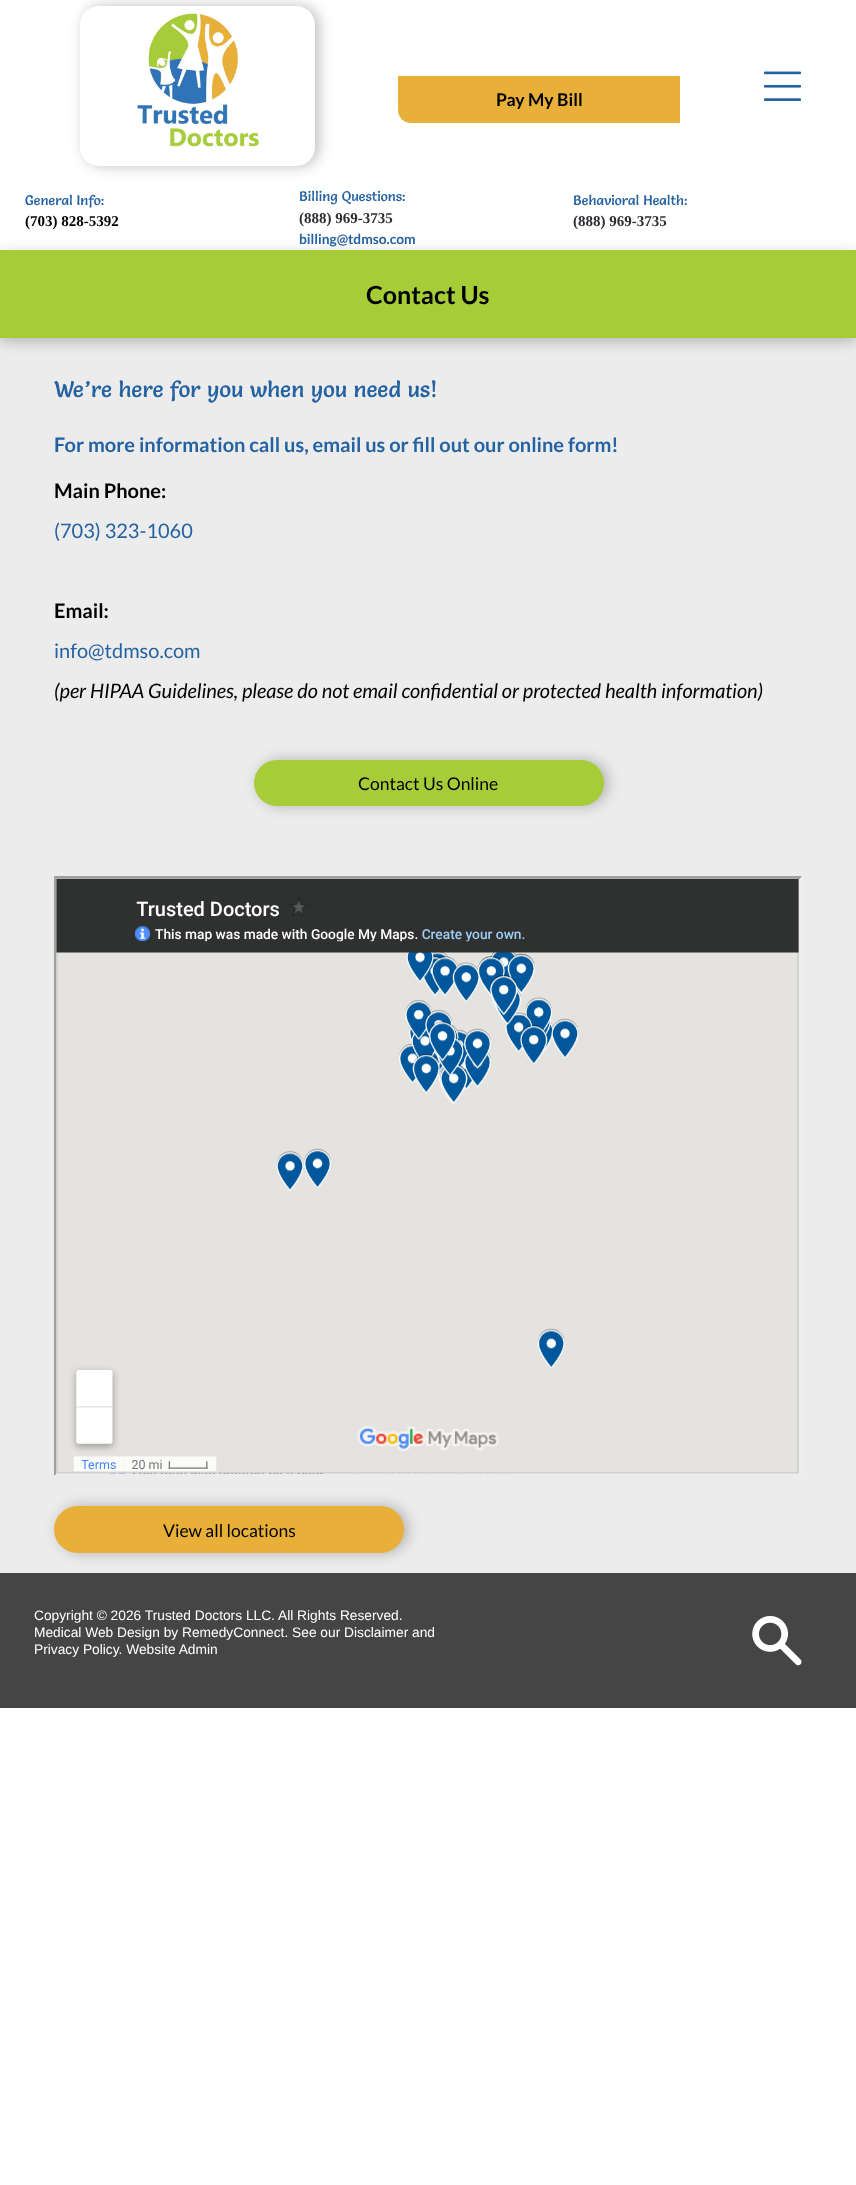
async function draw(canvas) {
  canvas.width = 856
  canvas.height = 2185
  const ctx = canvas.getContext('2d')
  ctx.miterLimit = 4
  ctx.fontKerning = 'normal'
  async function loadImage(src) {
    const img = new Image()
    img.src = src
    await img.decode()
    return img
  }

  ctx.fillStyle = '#fff'
  ctx.fillRect(0, 0, 856, 2185)
  ctx.fillStyle = '#ececec'
  ctx.fillRect(0, 338, 856, 1235)
  ctx.fillStyle = '#00000040'
  ctx.filter = 'blur(7px)'
  ctx.beginPath()
  ctx.roundRect(84, 6, 235, 160, 19)
  ctx.fill()
  ctx.filter = 'none'
  ctx.fillStyle = '#fff'
  ctx.beginPath()
  ctx.roundRect(80, 6, 235, 160, 19)
  ctx.fill()
  ctx.drawImage(await loadImage('image0.png'), 137, 13, 122, 134)
  ctx.fillStyle = '#e8b039'
  ctx.beginPath()
  ctx.roundRect(398, 76, 282, 47, [0, 0, 0, 13])
  ctx.fill()
  ctx.font = 'bold 17.5px Lato'
  ctx.fillStyle = '#000'
  ctx.fillText('Pay My Bill', 496, 106)
  ctx.drawImage(await loadImage('image1.png'), 764, 71, 37, 30)
  ctx.font = '13.75px Salsa'
  ctx.fillStyle = '#2562a2'
  ctx.fillText('General Info:', 25, 205)
  ctx.font = 'bold 15px Liberation Serif'
  ctx.fillStyle = '#000'
  ctx.fillText('(703) 828-5392', 25, 226)
  ctx.font = '13.75px Salsa'
  ctx.fillStyle = '#2562a2'
  ctx.fillText('Billing Questions:', 299, 201)
  ctx.font = 'bold 15px Liberation Serif'
  ctx.fillStyle = '#2d2e32'
  ctx.fillText('(888) 969-3735', 299, 223)
  ctx.font = 'bold 13.75px Lato'
  ctx.fillStyle = '#2562a2'
  ctx.fillText('billing@tdmso.com', 299, 244)
  ctx.font = '13.75px Salsa'
  ctx.fillText('Behavioral Health:', 573, 205)
  ctx.font = 'bold 15px Liberation Serif'
  ctx.fillStyle = '#2d2e32'
  ctx.fillText('(888) 969-3735', 573, 226)
  ctx.fillStyle = '#00000040'
  ctx.filter = 'blur(7px)'
  ctx.beginPath()
  ctx.rect(0, 254, 856, 87)
  ctx.fill()
  ctx.filter = 'none'
  ctx.fillStyle = '#a6cc38'
  ctx.fillRect(0, 250, 856, 88)
  ctx.font = 'bold 25px Lato'
  ctx.fillStyle = '#000'
  ctx.fillText('Contact Us', 366, 304)
  ctx.font = '22.5px Salsa'
  ctx.fillStyle = '#2562a2'
  ctx.fillText('We’re here for you when you need us!', 54, 397)
  ctx.font = 'bold 20px Lato'
  ctx.fillText('For more information call us, email us or fill out our online form!', 54, 452)
  ctx.fillStyle = '#000'
  ctx.fillText('Main Phone:', 54, 498)
  ctx.font = '20px Lato'
  ctx.fillStyle = '#2562a2'
  ctx.fillText('(703) 323-1060', 54, 538)
  ctx.font = 'bold 20px Lato'
  ctx.fillStyle = '#000'
  ctx.fillText('Email:', 54, 618)
  ctx.font = '20px Lato'
  ctx.fillStyle = '#2562a2'
  ctx.fillText('info@tdmso.com', 54, 658)
  ctx.font = 'italic 20px Lato'
  ctx.fillStyle = '#000'
  ctx.fillText('(per HIPAA Guidelines, please do not email confidential or protected health information)', 54, 698)
  ctx.fillStyle = '#00000040'
  ctx.filter = 'blur(7px)'
  ctx.beginPath()
  ctx.roundRect(258, 760, 350, 46, 23)
  ctx.fill()
  ctx.filter = 'none'
  ctx.fillStyle = '#a6cc38'
  ctx.beginPath()
  ctx.roundRect(254, 760, 350, 46, 23)
  ctx.fill()
  ctx.font = '17.5px Lato'
  ctx.fillStyle = '#000'
  ctx.fillText('Contact Us Online', 358, 790)
  ctx.fillStyle = '#9f9f9f'
  ctx.beginPath()
  ctx.moveTo(54, 876)
  ctx.lineTo(802, 876)
  ctx.lineTo(800, 879)
  ctx.lineTo(56, 879)
  ctx.closePath()
  ctx.fill()
  ctx.beginPath()
  ctx.moveTo(54, 1476)
  ctx.lineTo(54, 876)
  ctx.lineTo(56, 879)
  ctx.lineTo(56, 1474)
  ctx.closePath()
  ctx.fill()
  ctx.drawImage(await loadImage('image2.png'), 56, 878, 743, 596)
  ctx.fillStyle = '#eee'
  ctx.beginPath()
  ctx.moveTo(802, 876)
  ctx.lineTo(802, 1476)
  ctx.lineTo(800, 1474)
  ctx.lineTo(800, 879)
  ctx.closePath()
  ctx.fill()
  ctx.fillStyle = '#00000040'
  ctx.filter = 'blur(7px)'
  ctx.beginPath()
  ctx.roundRect(58, 1506, 350, 47, 23.5)
  ctx.fill()
  ctx.filter = 'none'
  ctx.fillStyle = '#e8b039'
  ctx.beginPath()
  ctx.roundRect(54, 1506, 350, 47, 23.5)
  ctx.fill()
  ctx.fillStyle = '#000'
  ctx.fillText('View all locations', 163, 1537)
  ctx.fillStyle = '#454545'
  ctx.fillRect(0, 1573, 856, 135)
  ctx.font = '13.75px Liberation Sans'
  ctx.fillStyle = '#fff'
  ctx.fillText('Copyright © 2026 Trusted Doctors LLC. All Rights Reserved.', 34, 1620)
  ctx.fillText('Medical Web Design by RemedyConnect. See our Disclaimer and', 34, 1637)
  ctx.fillText('Privacy Policy. Website Admin', 34, 1654)
  ctx.drawImage(await loadImage('image3.png'), 752, 1616, 50, 50)
}

draw(document.querySelector('canvas'))
